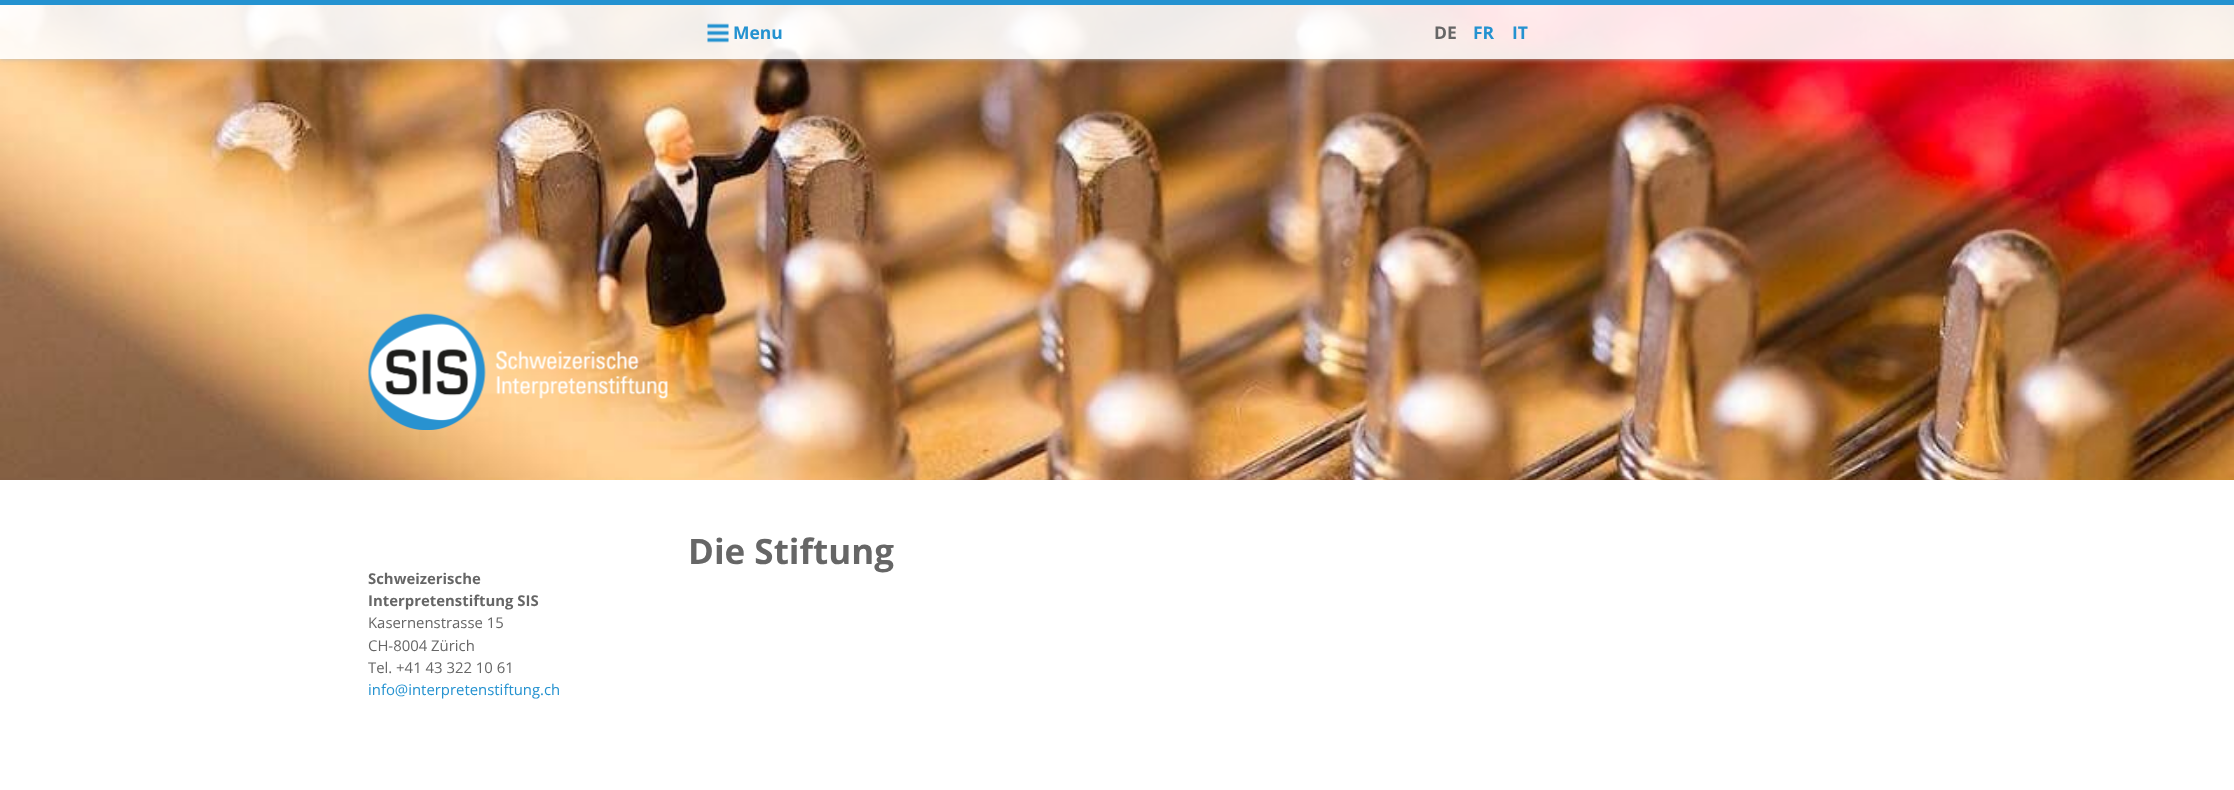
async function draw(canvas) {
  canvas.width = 2234
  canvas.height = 790
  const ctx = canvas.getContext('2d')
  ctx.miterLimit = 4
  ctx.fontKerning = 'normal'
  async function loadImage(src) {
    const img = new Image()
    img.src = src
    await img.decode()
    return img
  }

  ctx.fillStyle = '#fff'
  ctx.fillRect(0, 0, 2234, 790)
  ctx.drawImage(await loadImage('image0.png'), 0, 5, 2234, 475)
  ctx.drawImage(await loadImage('image1.png'), 368, 313, 300, 117)
  ctx.save()
  ctx.beginPath()
  ctx.moveTo(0, 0)
  ctx.lineTo(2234, 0)
  ctx.lineTo(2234, 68)
  ctx.lineTo(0, 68)
  ctx.closePath()
  ctx.moveTo(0, 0)
  ctx.lineTo(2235, 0)
  ctx.lineTo(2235, 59)
  ctx.lineTo(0, 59)
  ctx.closePath()
  ctx.clip('evenodd')
  ctx.fillStyle = '#bbb'
  ctx.filter = 'blur(2.5px)'
  ctx.beginPath()
  ctx.rect(0, 0, 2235, 59)
  ctx.fill()
  ctx.filter = 'none'
  ctx.restore()
  ctx.fillStyle = '#ffffffe6'
  ctx.fillRect(0, 5, 2234, 54)
  ctx.fillStyle = '#2492d0'
  ctx.fillRect(0, 0, 2234, 5)
  ctx.drawImage(await loadImage('image2.png'), 707, 23, 22, 20)
  ctx.font = 'bold 17.5px Open Sans'
  ctx.fillText('Menu', 733, 39)
  ctx.fillStyle = '#666'
  ctx.fillText('DE', 1434, 39)
  ctx.fillStyle = '#2492d0'
  ctx.fillText('FR', 1473, 39)
  ctx.fillText('IT', 1512, 39)
  ctx.font = 'bold 35px Open Sans'
  ctx.fillStyle = '#666'
  ctx.fillText('Die Stiftung', 688, 564)
  ctx.font = 'bold 14.9px Open Sans'
  ctx.fillText('Schweizerische', 368, 584)
  ctx.fillText('Interpretenstiftung SIS', 368, 606)
  ctx.font = '14.9px Open Sans'
  ctx.fillText('Kasernenstrasse 15', 368, 628)
  ctx.fillText('CH-8004 Zürich', 368, 651)
  ctx.fillText('Tel. +41 43 322 10 61', 368, 673)
  ctx.fillStyle = '#2492d0'
  ctx.fillText('info@interpretenstiftung.ch', 368, 695)
}

draw(document.querySelector('canvas'))
